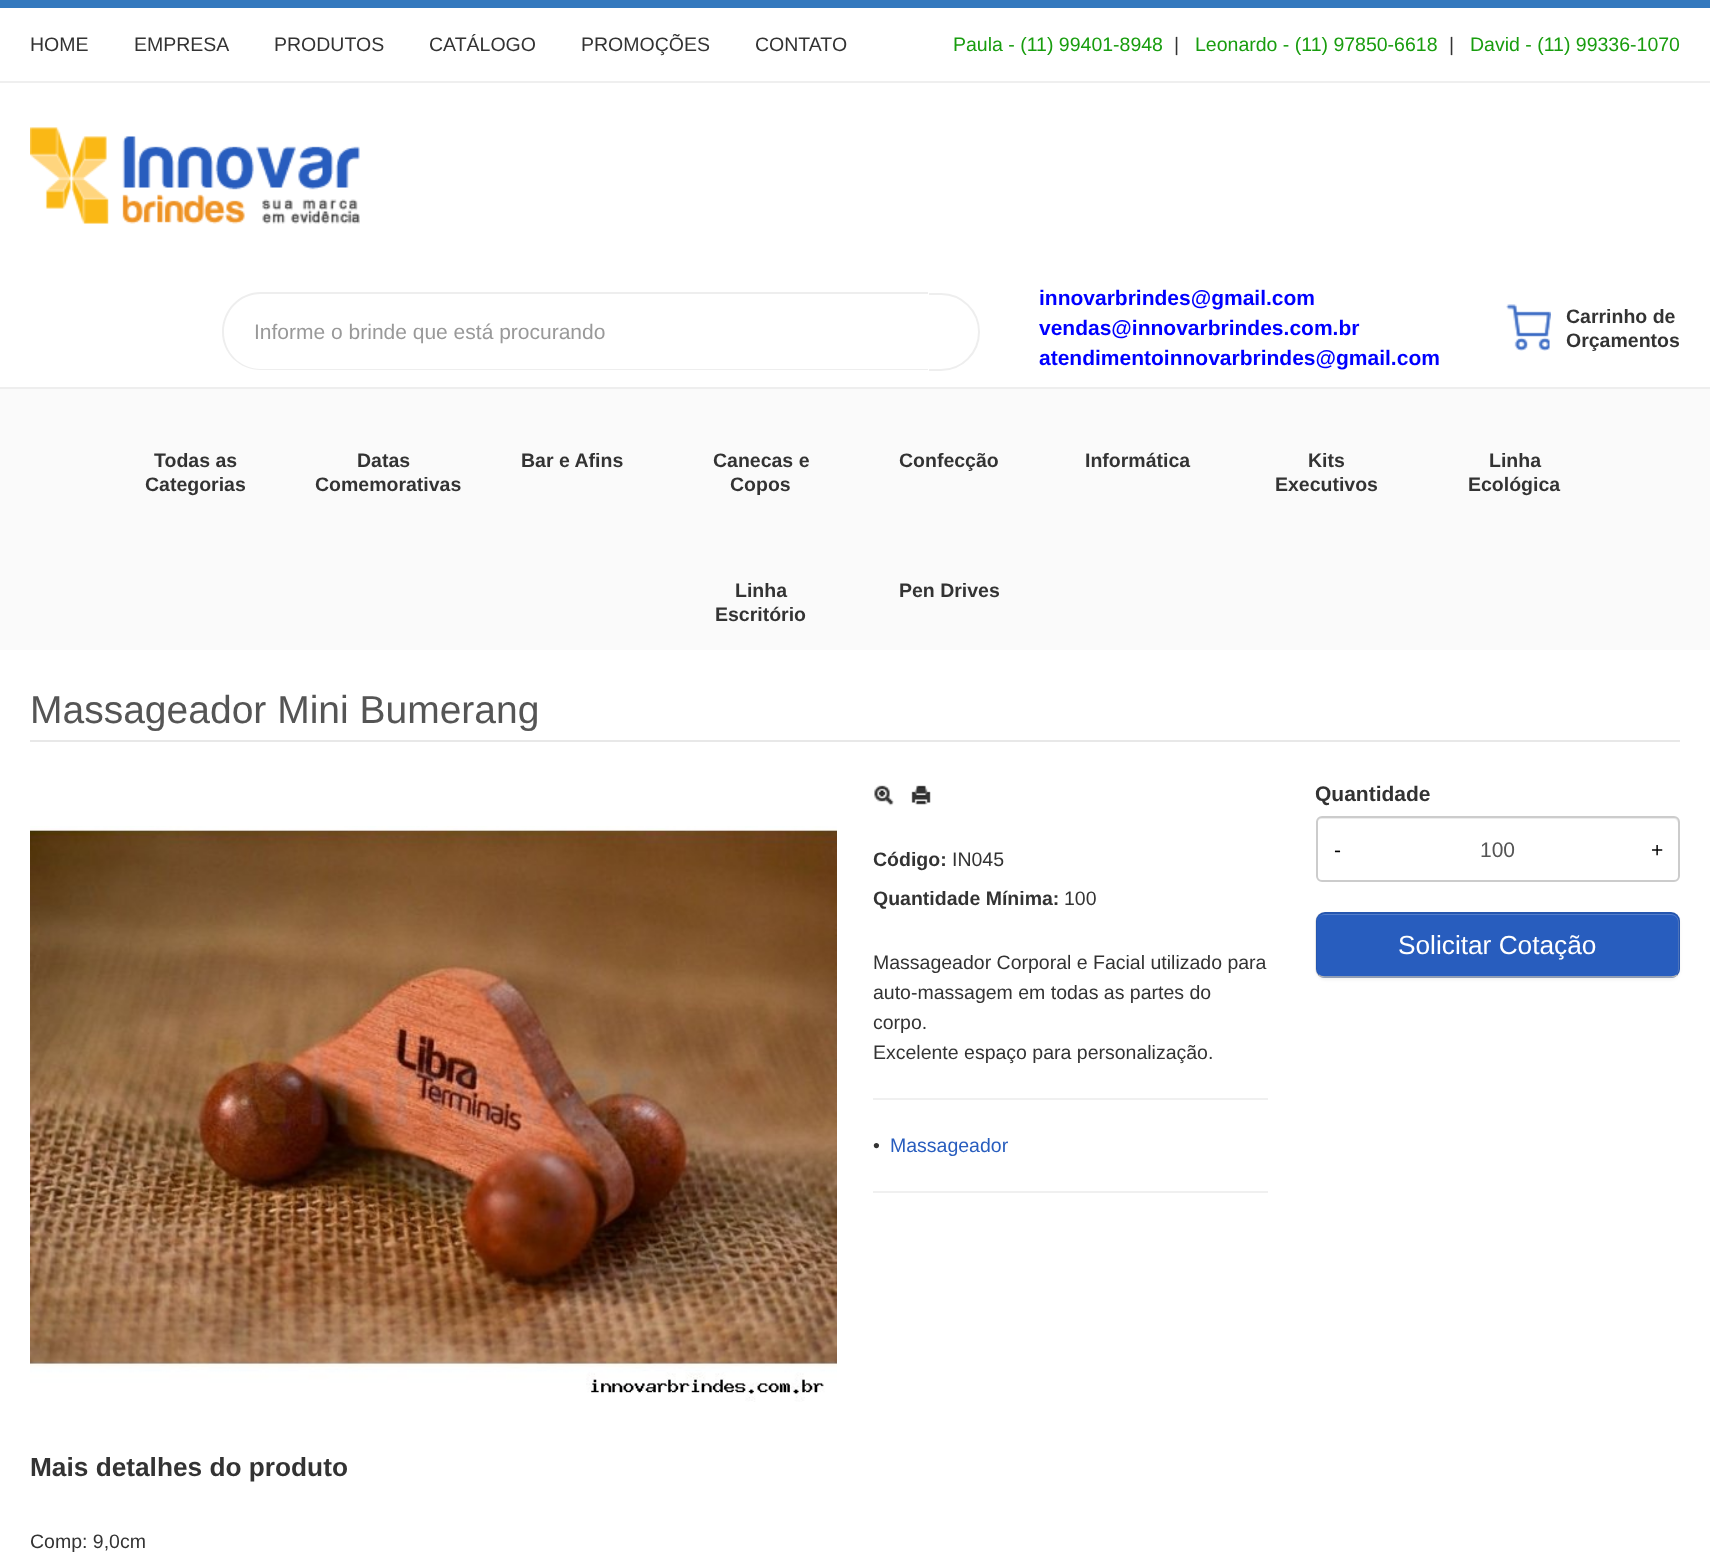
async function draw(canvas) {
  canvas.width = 1710
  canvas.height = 1566
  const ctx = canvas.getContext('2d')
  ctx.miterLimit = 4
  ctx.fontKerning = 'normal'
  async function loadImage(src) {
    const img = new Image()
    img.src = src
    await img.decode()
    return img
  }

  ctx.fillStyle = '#fff'
  ctx.fillRect(0, 0, 1710, 1566)
  ctx.fillStyle = '#efefef'
  ctx.fillRect(0, 81, 1710, 2)
  ctx.fillStyle = '#3479be'
  ctx.fillRect(0, 0, 1710, 8)
  ctx.font = '19.5px Liberation Sans'
  ctx.fillStyle = '#333'
  ctx.fillText('HOME', 30, 51)
  ctx.fillText('EMPRESA', 134, 51)
  ctx.fillText('PRODUTOS', 274, 51)
  ctx.fillText('CATÁLOGO', 429, 51)
  ctx.fillText('PROMOÇÕES', 581, 51)
  ctx.fillText('CONTATO', 755, 51)
  ctx.fillStyle = '#189d0e'
  ctx.fillText('Paula - (11) 99401-8948', 953, 51)
  ctx.fillStyle = '#333'
  ctx.fillText('|', 1174, 51)
  ctx.fillStyle = '#189d0e'
  ctx.fillText('Leonardo - (11) 97850-6618', 1195, 51)
  ctx.fillStyle = '#333'
  ctx.fillText('|', 1449, 51)
  ctx.fillStyle = '#189d0e'
  ctx.fillText('David - (11) 99336-1070', 1470, 51)
  ctx.fillStyle = '#eee'
  ctx.fillRect(0, 387, 1710, 2)
  ctx.drawImage(await loadImage('image0.png'), 30, 127, 330, 97)
  ctx.beginPath()
  ctx.roundRect(928, 294, 51, 76, [0, 38, 38, 0])
  ctx.strokeStyle = '#eee'
  ctx.lineWidth = 2
  ctx.stroke()
  ctx.fillStyle = '#fff'
  ctx.beginPath()
  ctx.roundRect(222, 293, 707, 78, [39, 0, 0, 39])
  ctx.fill()
  ctx.fillStyle = '#eee'
  ctx.beginPath()
  ctx.moveTo(261, 292)
  ctx.lineTo(928, 292)
  ctx.lineTo(928, 370)
  ctx.lineTo(261, 370)
  ctx.bezierCurveTo(239, 370, 222, 353, 222, 332)
  ctx.bezierCurveTo(222, 310, 239, 292, 261, 292)
  ctx.closePath()
  ctx.moveTo(261, 294)
  ctx.lineTo(928, 294)
  ctx.lineTo(928, 369)
  ctx.lineTo(261, 369)
  ctx.bezierCurveTo(240, 369, 224, 352, 224, 332)
  ctx.bezierCurveTo(224, 311, 240, 294, 261, 294)
  ctx.closePath()
  ctx.fill('evenodd')
  ctx.font = '21px Liberation Sans'
  ctx.fillStyle = '#999'
  ctx.fillText('Informe o brinde que está procurando', 254, 339)
  ctx.font = 'bold 21px Liberation Sans'
  ctx.fillStyle = '#00f'
  ctx.fillText('innovarbrindes@gmail.com', 1039, 305)
  ctx.fillText('vendas@innovarbrindes.com.br', 1039, 335)
  ctx.fillText('atendimentoinnovarbrindes@gmail.com', 1039, 365)
  ctx.drawImage(await loadImage('image1.png'), 1506, 304, 45, 47)
  ctx.font = 'bold 19.5px Liberation Sans'
  ctx.fillStyle = '#333'
  ctx.fillText('Carrinho de', 1566, 323)
  ctx.fillText('Orçamentos', 1566, 347)
  ctx.fillStyle = '#fafafa'
  ctx.fillRect(0, 389, 1710, 261)
  ctx.fillStyle = '#333'
  ctx.fillText('Todas as', 154, 467)
  ctx.fillText('Categorias', 145, 491)
  ctx.fillText('Datas', 357, 467)
  ctx.fillText('Comemorativas', 315, 491)
  ctx.fillText('Bar e Afins', 521, 467)
  ctx.fillText('Canecas e', 713, 467)
  ctx.fillText('Copos', 730, 491)
  ctx.fillText('Confecção', 899, 467)
  ctx.fillText('Informática', 1085, 467)
  ctx.fillText('Kits', 1308, 467)
  ctx.fillText('Executivos', 1275, 491)
  ctx.fillText('Linha', 1489, 467)
  ctx.fillText('Ecológica', 1468, 491)
  ctx.fillText('Linha', 735, 597)
  ctx.fillText('Escritório', 715, 621)
  ctx.fillText('Pen Drives', 899, 597)
  ctx.fillStyle = '#e8e8e8'
  ctx.fillRect(30, 740, 1650, 2)
  ctx.font = '39px Liberation Sans'
  ctx.fillStyle = '#555'
  ctx.fillText('Massageador Mini Bumerang', 30, 723)
  ctx.drawImage(await loadImage('image2.png'), 30, 826, 807, 576)
  ctx.drawImage(await loadImage('image3.png'), 874, 785, 20, 21)
  ctx.drawImage(await loadImage('image4.png'), 911, 785, 20, 20)
  ctx.font = 'bold 19.5px Liberation Sans'
  ctx.fillStyle = '#333'
  ctx.fillText('Código:', 873, 866)
  ctx.font = '19.5px Liberation Sans'
  ctx.fillText('IN045', 952, 866)
  ctx.font = 'bold 19.5px Liberation Sans'
  ctx.fillText('Quantidade Mínima:', 873, 905)
  ctx.font = '19.5px Liberation Sans'
  ctx.fillText('100', 1064, 905)
  ctx.fillText('Massageador Corporal e Facial utilizado para', 873, 969)
  ctx.fillText('auto-massagem em todas as partes do', 873, 999)
  ctx.fillText('corpo.', 873, 1029)
  ctx.fillText('Excelente espaço para personalização.', 873, 1059)
  ctx.fillStyle = '#f0f0f0'
  ctx.fillRect(873, 1098, 395, 2)
  ctx.fillStyle = '#333'
  ctx.fillText('•', 873, 1152)
  ctx.fillStyle = '#285dbe'
  ctx.fillText('Massageador', 890, 1152)
  ctx.fillStyle = '#f0f0f0'
  ctx.fillRect(873, 1191, 395, 2)
  ctx.font = 'bold 21px Liberation Sans'
  ctx.fillStyle = '#333'
  ctx.fillText('Quantidade', 1315, 801)
  ctx.fillStyle = '#ececec'
  ctx.beginPath()
  ctx.moveTo(1322, 819)
  ctx.lineTo(1674, 819)
  ctx.bezierCurveTo(1676, 819, 1678, 821, 1678, 824)
  ctx.lineTo(1678, 879)
  ctx.bezierCurveTo(1679, 878, 1679, 877, 1679, 876)
  ctx.lineTo(1679, 823)
  ctx.bezierCurveTo(1679, 820, 1677, 818, 1674, 818)
  ctx.lineTo(1322, 818)
  ctx.bezierCurveTo(1319, 818, 1317, 820, 1317, 823)
  ctx.lineTo(1317, 824)
  ctx.bezierCurveTo(1317, 821, 1319, 819, 1322, 819)
  ctx.closePath()
  ctx.fill()
  ctx.beginPath()
  ctx.roundRect(1317, 817, 362, 64, 5)
  ctx.strokeStyle = '#ccc'
  ctx.stroke()
  ctx.font = '21px Liberation Sans'
  ctx.fillStyle = '#000'
  ctx.fillText('-', 1334, 857)
  ctx.fillStyle = '#555'
  ctx.fillText('100', 1480, 857)
  ctx.fillStyle = '#000'
  ctx.fillText('+', 1651, 857)
  ctx.fillStyle = '#0000000d'
  ctx.filter = 'blur(1.5px)'
  ctx.beginPath()
  ctx.roundRect(1316, 914, 364, 66, 9)
  ctx.fill()
  ctx.filter = 'none'
  ctx.fillStyle = '#285dbe'
  ctx.beginPath()
  ctx.roundRect(1316, 912, 364, 66, 9)
  ctx.fill()
  ctx.fillStyle = '#537dcb'
  ctx.beginPath()
  ctx.moveTo(1324, 915)
  ctx.lineTo(1671, 915)
  ctx.bezierCurveTo(1675, 915, 1678, 918, 1678, 922)
  ctx.lineTo(1678, 970)
  ctx.lineTo(1677, 974)
  ctx.bezierCurveTo(1678, 973, 1679, 971, 1679, 969)
  ctx.lineTo(1679, 922)
  ctx.bezierCurveTo(1679, 918, 1675, 914, 1671, 914)
  ctx.lineTo(1325, 914)
  ctx.bezierCurveTo(1321, 914, 1317, 918, 1317, 922)
  ctx.bezierCurveTo(1317, 918, 1320, 915, 1324, 915)
  ctx.closePath()
  ctx.fill()
  ctx.beginPath()
  ctx.moveTo(1677, 975)
  ctx.bezierCurveTo(1675.5, 976.5, 1673, 977, 1671, 977)
  ctx.lineTo(1324.5, 977)
  ctx.bezierCurveTo(1322.5, 977, 1320, 976.5, 1318.5, 975)
  ctx.strokeStyle = '#b3b3b3'
  ctx.lineWidth = 1.5
  ctx.stroke()
  ctx.beginPath()
  ctx.moveTo(1318.5, 975)
  ctx.bezierCurveTo(1317, 973.5, 1316, 971, 1316, 969)
  ctx.lineTo(1316, 921)
  ctx.bezierCurveTo(1316, 919, 1317, 916.5, 1318.5, 915)
  ctx.bezierCurveTo(1320, 913.5, 1322.5, 913, 1324.5, 913)
  ctx.lineTo(1671, 913)
  ctx.bezierCurveTo(1673, 913, 1675.5, 913.5, 1677, 915)
  ctx.bezierCurveTo(1678.5, 916.5, 1679, 919, 1679, 921)
  ctx.lineTo(1679, 969)
  ctx.bezierCurveTo(1679, 971, 1678.5, 973.5, 1677, 975)
  ctx.strokeStyle = '#0000001a'
  ctx.stroke()
  ctx.font = '26.25px Liberation Sans'
  ctx.fillStyle = '#fff'
  ctx.fillText('Solicitar Cotação', 1398, 954)
  ctx.font = 'bold 26.25px Liberation Sans'
  ctx.fillStyle = '#333'
  ctx.fillText('Mais detalhes do produto', 30, 1476)
  ctx.font = '19.5px Liberation Sans'
  ctx.fillText('Comp: 9,0cm', 30, 1548)
}

draw(document.querySelector('canvas'))
